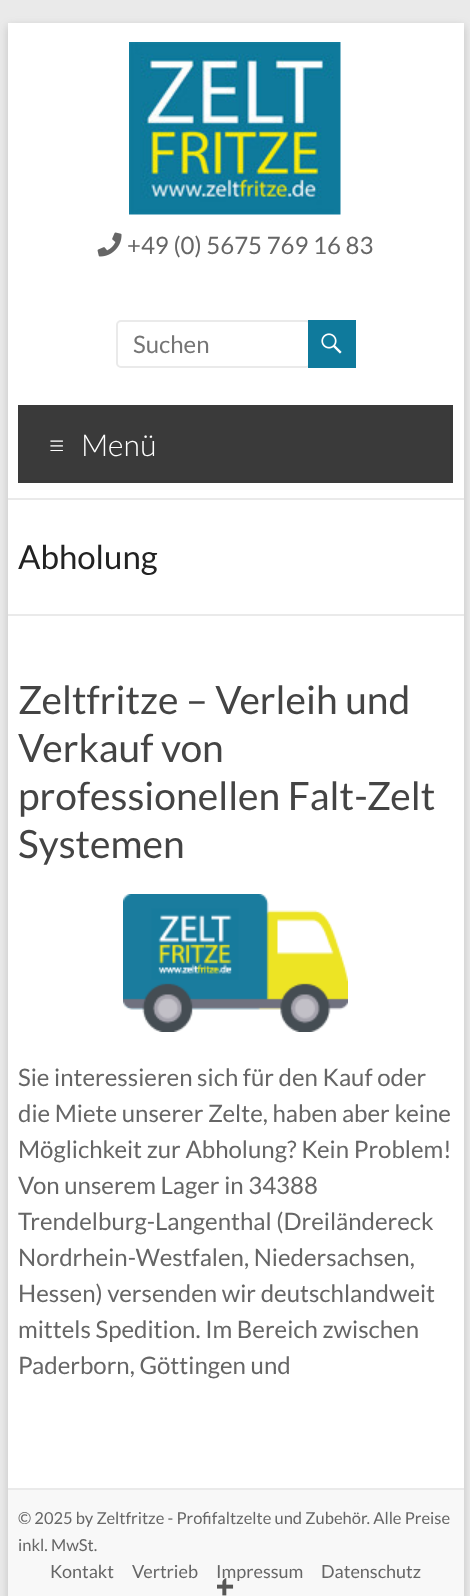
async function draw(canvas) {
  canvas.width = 470
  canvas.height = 1596
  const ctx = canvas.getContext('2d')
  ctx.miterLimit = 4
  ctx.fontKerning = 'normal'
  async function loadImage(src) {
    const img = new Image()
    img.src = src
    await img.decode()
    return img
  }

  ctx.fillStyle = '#eaeaea'
  ctx.fillRect(0, 0, 470, 1596)
  ctx.fillStyle = '#6464644d'
  ctx.filter = 'blur(4.5px)'
  ctx.beginPath()
  ctx.rect(8, 26, 456, 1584)
  ctx.fill()
  ctx.filter = 'none'
  ctx.fillStyle = '#fff'
  ctx.fillRect(8, 23, 456, 1465)
  ctx.fillStyle = '#eaeaea'
  ctx.fillRect(8, 498, 456, 2)
  ctx.drawImage(await loadImage('image0.png'), 129, 42, 212, 173)
  ctx.drawImage(await loadImage('image1.png'), 97, 232, 25, 25)
  ctx.font = '24px Lato'
  ctx.fillStyle = '#666'
  ctx.fillText('+49 (0) 5675 769 16 83', 127, 254)
  ctx.beginPath()
  ctx.roundRect(117, 321, 193, 46, 4)
  ctx.strokeStyle = '#eaeaea'
  ctx.lineWidth = 2
  ctx.stroke()
  ctx.fillStyle = '#757575'
  ctx.fillText('Suchen', 133, 353)
  ctx.fillStyle = '#0f7a9c'
  ctx.fillRect(308, 320, 48, 48)
  ctx.drawImage(await loadImage('image2.png'), 321, 333, 21, 21)
  ctx.fillStyle = '#3a3a3a'
  ctx.fillRect(18, 405, 435, 78)
  ctx.font = '300 30px Lato'
  ctx.fillStyle = '#fff'
  ctx.fillText('≡', 48, 456)
  ctx.fillText('Menü', 81, 456)
  ctx.fillStyle = '#eaeaea'
  ctx.fillRect(8, 614, 456, 2)
  ctx.font = '33px Lato'
  ctx.fillStyle = '#222'
  ctx.fillText('Abholung', 18, 569)
  ctx.font = '39px Lato'
  ctx.fillStyle = '#444'
  ctx.fillText('Zeltfritze – Verleih und', 18, 714)
  ctx.fillText('Verkauf von', 18, 762)
  ctx.fillText('professionellen Falt-Zelt', 18, 810)
  ctx.fillText('Systemen', 18, 858)
  ctx.drawImage(await loadImage('image3.png'), 123, 894, 225, 138)
  ctx.font = '24px Lato'
  ctx.fillStyle = '#666'
  ctx.fillText('Sie interessieren sich für den Kauf oder', 18, 1086)
  ctx.fillText('die Miete unserer Zelte, haben aber keine', 18, 1122)
  ctx.fillText('Möglichkeit zur Abholung? Kein Problem!', 18, 1158)
  ctx.fillText('Von unserem Lager in 34388', 18, 1194)
  ctx.fillText('Trendelburg-Langenthal (Dreiländereck', 18, 1230)
  ctx.fillText('Nordrhein-Westfalen, Niedersachsen,', 18, 1266)
  ctx.fillText('Hessen) versenden wir deutschlandweit', 18, 1302)
  ctx.fillText('mittels Spedition. Im Bereich zwischen', 18, 1338)
  ctx.fillText('Paderborn, Göttingen und', 18, 1374)
  ctx.fillStyle = '#f8f8f8'
  ctx.fillRect(8, 1490, 456, 106)
  ctx.fillStyle = '#eaeaea'
  ctx.fillRect(8, 1488, 456, 2)
  ctx.font = '16.5px Lato'
  ctx.fillStyle = '#666'
  ctx.fillText('© 2025 by Zeltfritze - Profifaltzelte und Zubehör. Alle Preise', 18, 1524)
  ctx.fillText('inkl. MwSt.', 18, 1551)
  ctx.font = '18px Lato'
  ctx.fillText('Kontakt', 50, 1578)
  ctx.fillText('Vertrieb', 132, 1578)
  ctx.fillText('Impressum', 216, 1578)
  ctx.fillText('Datenschutz', 321, 1578)
  ctx.drawImage(await loadImage('image4.png'), 217, 1578, 17, 18)
}

draw(document.querySelector('canvas'))
